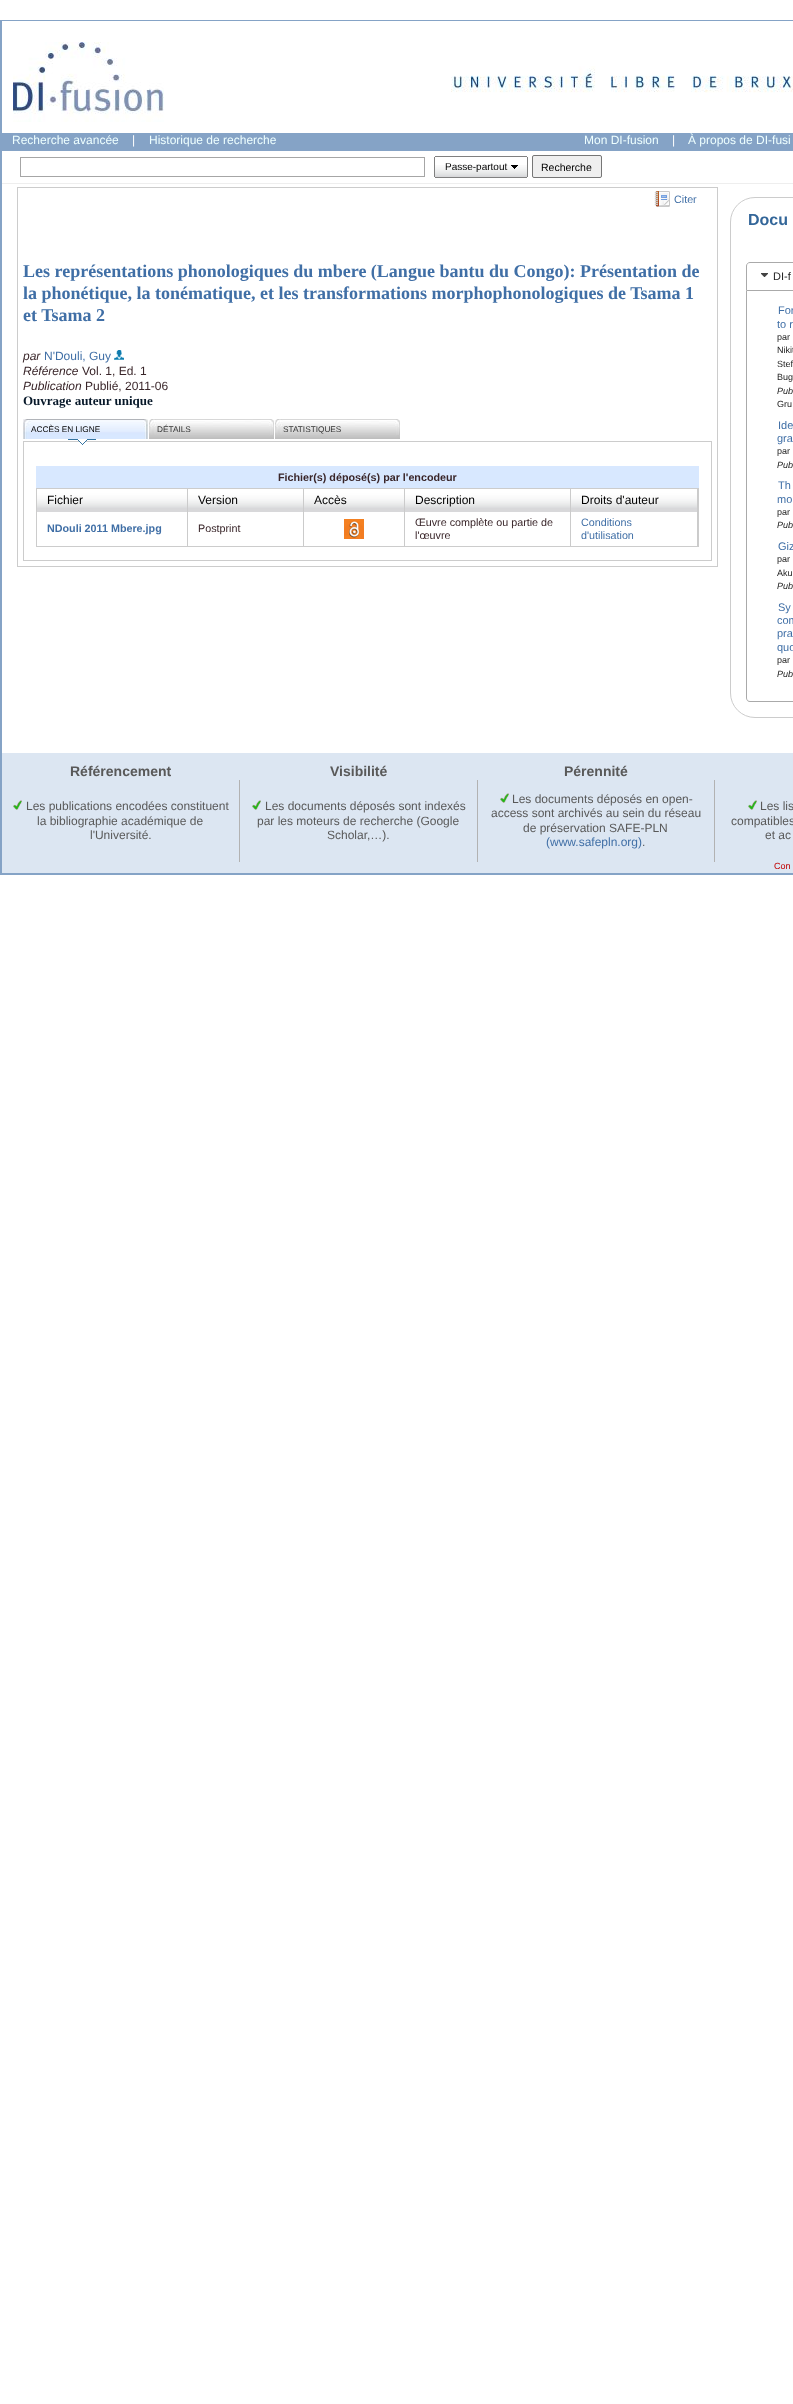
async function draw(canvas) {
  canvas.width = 793
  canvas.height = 2404
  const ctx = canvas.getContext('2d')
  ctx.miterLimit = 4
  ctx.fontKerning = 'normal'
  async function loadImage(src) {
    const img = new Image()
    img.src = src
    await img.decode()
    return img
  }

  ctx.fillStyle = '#fff'
  ctx.fillRect(0, 0, 793, 2404)
  ctx.fillStyle = '#85a3c6'
  ctx.fillRect(0, 20, 793, 855)
  ctx.fillStyle = '#fff'
  ctx.fillRect(2, 21, 791, 732)
  ctx.drawImage(await loadImage('image0.png'), 13, 42, 151, 80)
  ctx.drawImage(await loadImage('image1.png'), 451, 66, 342, 27)
  ctx.fillStyle = '#85a3c6'
  ctx.fillRect(2, 133, 791, 18)
  ctx.font = '12px Liberation Sans'
  ctx.fillStyle = '#eff'
  ctx.fillText('Recherche avancée', 12, 144)
  ctx.fillStyle = '#fff'
  ctx.fillText('|', 132, 144)
  ctx.fillStyle = '#eff'
  ctx.fillText('Historique de recherche', 149, 144)
  ctx.fillText('Mon DI-fusion', 584, 144)
  ctx.fillStyle = '#fff'
  ctx.fillText('|', 672, 144)
  ctx.fillStyle = '#eff'
  ctx.fillText('À propos de DI-fusi', 688, 144)
  ctx.strokeStyle = '#a6a6a6'
  ctx.strokeRect(20.5, 157.5, 404, 19)
  ctx.drawImage(await loadImage('image2.png'), 435, 165, 92, 12)
  ctx.fillStyle = '#808080'
  ctx.fillRect(435, 156, 92, 1)
  ctx.fillRect(435, 177, 92, 1)
  ctx.fillRect(527, 157, 1, 20)
  ctx.fillRect(434, 157, 1, 20)
  ctx.drawImage(await loadImage('image3.png'), 511, 165, 7, 4)
  ctx.font = '10px Liberation Sans'
  ctx.fillStyle = '#000'
  ctx.fillText('Passe-partout', 445, 170)
  ctx.fillStyle = '#efefef'
  ctx.beginPath()
  ctx.roundRect(532.5, 155.5, 69, 22, 1.5)
  ctx.fill()
  ctx.strokeStyle = '#767676'
  ctx.stroke()
  ctx.font = '10.5px Liberation Sans'
  ctx.fillStyle = '#000'
  ctx.fillText('Recherche', 541, 171)
  ctx.fillStyle = '#eee'
  ctx.fillRect(2, 183, 791, 1)
  ctx.strokeStyle = '#ccc'
  ctx.strokeRect(17.5, 187.5, 700, 379)
  ctx.drawImage(await loadImage('image4.png'), 654, 191, 16, 16)
  ctx.font = '10.75px Liberation Sans'
  ctx.fillStyle = '#406fa6'
  ctx.fillText('Citer', 674, 203)
  ctx.font = 'bold 18px Liberation Serif'
  ctx.fillText('Les représentations phonologiques du mbere (Langue bantu du Congo): Présentation de', 23, 277)
  ctx.fillText('la phonétique, la tonématique, et les transformations morphophonologiques de Tsama 1', 23, 299)
  ctx.fillText('et Tsama 2', 23, 321)
  ctx.font = 'italic 12px Liberation Sans'
  ctx.fillStyle = '#392529'
  ctx.fillText('par', 23, 360)
  ctx.font = '12px Liberation Sans'
  ctx.fillStyle = '#406fa6'
  ctx.fillText('N\'Douli, Guy', 44, 360)
  ctx.drawImage(await loadImage('image5.png'), 114, 350, 10, 10)
  ctx.font = 'italic 12px Liberation Sans'
  ctx.fillStyle = '#392529'
  ctx.fillText('Référence', 23, 375)
  ctx.font = '12px Liberation Sans'
  ctx.fillText('Vol. 1, Ed. 1', 82, 375)
  ctx.font = 'italic 12px Liberation Sans'
  ctx.fillText('Publication', 23, 390)
  ctx.font = '12px Liberation Sans'
  ctx.fillText('Publié, 2011-06', 85, 390)
  ctx.font = 'bold 13px Liberation Serif'
  ctx.fillStyle = '#071829'
  ctx.fillText('Ouvrage auteur unique', 23, 405)
  ctx.drawImage(await loadImage('image6.png'), 23, 419, 125, 20)
  ctx.font = '8.25px Liberation Sans'
  ctx.fillStyle = '#000'
  ctx.fillText('ACCÈS EN LIGNE', 31, 432)
  ctx.strokeRect(23.5, 441.5, 688, 119)
  ctx.drawImage(await loadImage('image7.png'), 68, 439, 28, 6)
  ctx.drawImage(await loadImage('image8.png'), 149, 419, 125, 20)
  ctx.fillStyle = '#333'
  ctx.fillText('DÉTAILS', 157, 432)
  ctx.drawImage(await loadImage('image8.png'), 275, 419, 125, 20)
  ctx.fillText('STATISTIQUES', 283, 432)
  ctx.fillStyle = '#d8e8ff'
  ctx.fillRect(36, 466, 663, 22)
  ctx.font = 'bold 10.75px Liberation Sans'
  ctx.fillStyle = '#392529'
  ctx.fillText('Fichier(s) déposé(s) par l\'encodeur', 278, 481)
  ctx.strokeRect(36.5, 488.5, 662, 58)
  ctx.fillStyle = '#d8d8da'
  ctx.fillRect(37, 508, 150, 4)
  ctx.drawImage(await loadImage('image9.png'), 37, 489, 150, 19)
  ctx.fillStyle = '#cbcbcb'
  ctx.fillRect(187, 489, 1, 57)
  ctx.font = '12px Liberation Sans'
  ctx.fillStyle = '#000'
  ctx.fillText('Fichier', 47, 504)
  ctx.fillStyle = '#d8d8da'
  ctx.fillRect(188, 508, 115, 4)
  ctx.drawImage(await loadImage('image10.png'), 188, 489, 115, 19)
  ctx.fillStyle = '#cbcbcb'
  ctx.fillRect(303, 489, 1, 57)
  ctx.fillStyle = '#000'
  ctx.fillText('Version', 198, 504)
  ctx.fillStyle = '#d8d8da'
  ctx.fillRect(304, 508, 100, 4)
  ctx.drawImage(await loadImage('image11.png'), 304, 489, 100, 19)
  ctx.fillStyle = '#cbcbcb'
  ctx.fillRect(404, 489, 1, 57)
  ctx.fillStyle = '#000'
  ctx.fillText('Accès', 314, 504)
  ctx.fillStyle = '#d8d8da'
  ctx.fillRect(405, 508, 165, 4)
  ctx.drawImage(await loadImage('image12.png'), 405, 489, 165, 19)
  ctx.fillStyle = '#cbcbcb'
  ctx.fillRect(570, 489, 1, 57)
  ctx.fillStyle = '#000'
  ctx.fillText('Description', 415, 504)
  ctx.fillStyle = '#d8d8da'
  ctx.fillRect(571, 508, 126, 4)
  ctx.drawImage(await loadImage('image13.png'), 571, 489, 126, 19)
  ctx.fillStyle = '#cbcbcb'
  ctx.fillRect(697, 489, 1, 57)
  ctx.fillStyle = '#000'
  ctx.fillText('Droits d\'auteur', 581, 504)
  ctx.font = 'bold 10.75px Liberation Sans'
  ctx.fillStyle = '#406fa6'
  ctx.fillText('NDouli 2011 Mbere.jpg', 47, 532)
  ctx.font = '10.75px Liberation Sans'
  ctx.fillStyle = '#392529'
  ctx.fillText('Postprint', 198, 532)
  ctx.drawImage(await loadImage('image14.png'), 344, 519, 20, 20)
  ctx.fillText('Œuvre complète ou partie de', 415, 526)
  ctx.fillText('l\'œuvre', 415, 539)
  ctx.fillStyle = '#406fa6'
  ctx.fillText('Conditions', 581, 526)
  ctx.fillText('d\'utilisation', 581, 539)
  ctx.beginPath()
  ctx.roundRect(730.5, 197.5, 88, 520, 24.5)
  ctx.stroke()
  ctx.font = 'bold 16px Liberation Sans'
  ctx.fillStyle = '#369'
  ctx.fillText('Docu', 748, 225)
  ctx.beginPath()
  ctx.moveTo(750, 262.5)
  ctx.lineTo(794, 262.5)
  ctx.bezierCurveTo(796, 262.5, 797.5, 264, 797.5, 266)
  ctx.lineTo(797.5, 290.5)
  ctx.lineTo(746.5, 290.5)
  ctx.lineTo(746.5, 266)
  ctx.bezierCurveTo(746.5, 264, 748, 262.5, 750, 262.5)
  ctx.closePath()
  ctx.strokeStyle = '#aaa'
  ctx.stroke()
  ctx.drawImage(await loadImage('image15.png'), 761, 273, 7, 4)
  ctx.font = '11px Liberation Sans'
  ctx.fillStyle = '#222'
  ctx.fillText('DI-f', 773, 280)
  ctx.fillStyle = '#aaa'
  ctx.beginPath()
  ctx.moveTo(746, 291)
  ctx.lineTo(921, 291)
  ctx.lineTo(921, 698)
  ctx.bezierCurveTo(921, 700, 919, 702, 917, 702)
  ctx.lineTo(750, 702)
  ctx.bezierCurveTo(748, 702, 746, 700, 746, 698)
  ctx.closePath()
  ctx.moveTo(747, 291)
  ctx.lineTo(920, 291)
  ctx.lineTo(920, 698)
  ctx.bezierCurveTo(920, 700, 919, 701, 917, 701)
  ctx.lineTo(750, 701)
  ctx.bezierCurveTo(748, 701, 747, 700, 747, 698)
  ctx.closePath()
  ctx.fill('evenodd')
  ctx.fillStyle = '#406fa6'
  ctx.fillText('For', 778, 314)
  ctx.fillText('to r', 777, 328)
  ctx.font = '9px Liberation Sans'
  ctx.fillStyle = '#222'
  ctx.fillText('par', 777, 340)
  ctx.fillText('Nikit', 777, 353)
  ctx.fillText('Stef', 777, 367)
  ctx.fillText('Bug', 777, 380)
  ctx.font = 'italic 9px Liberation Sans'
  ctx.fillText('Pub', 777, 394)
  ctx.font = '9px Liberation Sans'
  ctx.fillText('Gru', 777, 407)
  ctx.font = '11px Liberation Sans'
  ctx.fillStyle = '#406fa6'
  ctx.fillText('Ide', 778, 429)
  ctx.fillText('gra', 777, 442)
  ctx.font = '9px Liberation Sans'
  ctx.fillStyle = '#222'
  ctx.fillText('par', 777, 454)
  ctx.font = 'italic 9px Liberation Sans'
  ctx.fillText('Pub', 777, 468)
  ctx.font = '11px Liberation Sans'
  ctx.fillStyle = '#406fa6'
  ctx.fillText('Th', 778, 489)
  ctx.fillText('mo', 777, 503)
  ctx.font = '9px Liberation Sans'
  ctx.fillStyle = '#222'
  ctx.fillText('par', 777, 515)
  ctx.font = 'italic 9px Liberation Sans'
  ctx.fillText('Pub', 777, 528)
  ctx.font = '11px Liberation Sans'
  ctx.fillStyle = '#406fa6'
  ctx.fillText('Giz', 778, 550)
  ctx.font = '9px Liberation Sans'
  ctx.fillStyle = '#222'
  ctx.fillText('par', 777, 562)
  ctx.fillText('Aku', 777, 576)
  ctx.font = 'italic 9px Liberation Sans'
  ctx.fillText('Pub', 777, 589)
  ctx.font = '11px Liberation Sans'
  ctx.fillStyle = '#406fa6'
  ctx.fillText('Sy', 778, 611)
  ctx.fillText('com', 777, 624)
  ctx.fillText('pra', 777, 637)
  ctx.fillText('quo', 777, 651)
  ctx.font = '9px Liberation Sans'
  ctx.fillStyle = '#222'
  ctx.fillText('par', 777, 663)
  ctx.font = 'italic 9px Liberation Sans'
  ctx.fillText('Pub', 777, 677)
  ctx.fillStyle = '#dce6f2'
  ctx.fillRect(2, 753, 791, 120)
  ctx.font = 'bold 14px Liberation Sans'
  ctx.fillStyle = '#595959'
  ctx.fillText('Référencement', 70, 776)
  ctx.fillText('Visibilité', 330, 776)
  ctx.fillText('Pérennité', 564, 776)
  ctx.drawImage(await loadImage('image16.png'), 13, 800, 9, 10)
  ctx.font = '12px Liberation Sans'
  ctx.fillText('Les publications encodées constituent', 26, 810)
  ctx.fillText('la bibliographie académique de', 37, 825)
  ctx.fillText('l\'Université.', 90, 839)
  ctx.fillStyle = '#b2b2b2'
  ctx.fillRect(239, 780, 1, 82)
  ctx.drawImage(await loadImage('image17.png'), 252, 800, 9, 10)
  ctx.fillStyle = '#595959'
  ctx.fillText('Les documents déposés sont indexés', 265, 810)
  ctx.fillText('par les moteurs de recherche (Google', 257, 825)
  ctx.fillText('Scholar,…).', 327, 839)
  ctx.fillStyle = '#b2b2b2'
  ctx.fillRect(477, 780, 1, 82)
  ctx.drawImage(await loadImage('image18.png'), 500, 793, 9, 10)
  ctx.fillStyle = '#595959'
  ctx.fillText('Les documents déposés en open-', 512, 803)
  ctx.fillText('access sont archivés au sein du réseau', 491, 817)
  ctx.fillText('de préservation SAFE-PLN', 523, 832)
  ctx.fillStyle = '#406fa6'
  ctx.fillText('(www.safepln.org)', 546, 846)
  ctx.fillStyle = '#595959'
  ctx.fillText('.', 642, 846)
  ctx.fillStyle = '#b2b2b2'
  ctx.fillRect(714, 780, 1, 82)
  ctx.drawImage(await loadImage('image18.png'), 748, 800, 9, 10)
  ctx.fillStyle = '#595959'
  ctx.fillText('Les lis', 760, 810)
  ctx.fillText('compatibles', 731, 825)
  ctx.fillText('et ac', 765, 839)
  ctx.font = '9px Liberation Sans'
  ctx.fillStyle = '#c00000'
  ctx.fillText('Con', 774, 869)
}

draw(document.querySelector('canvas'))
